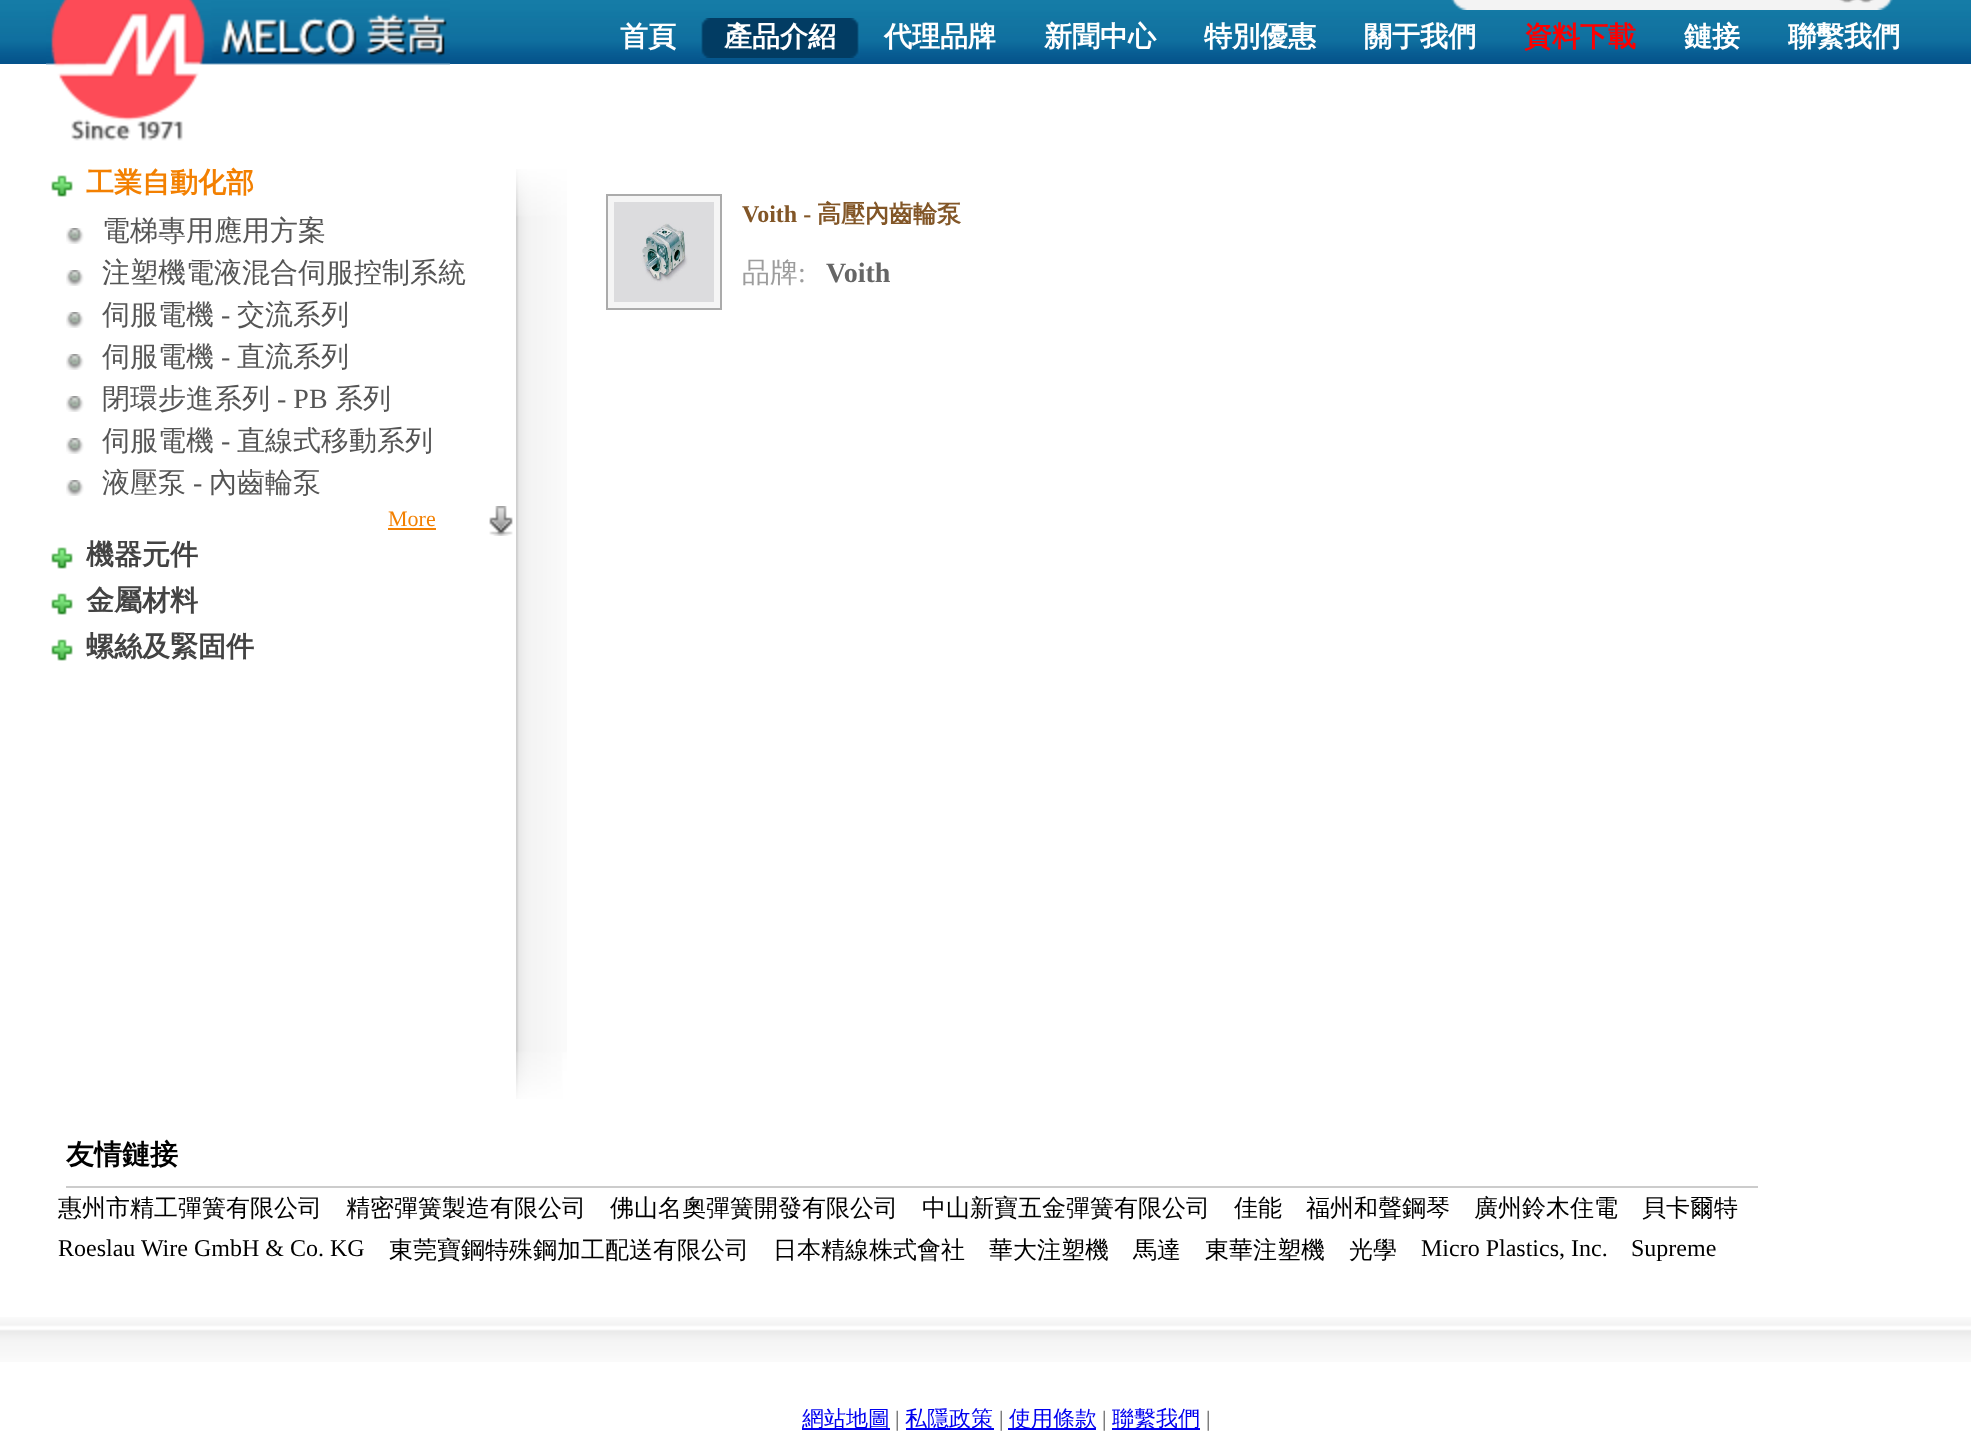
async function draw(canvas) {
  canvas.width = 1971
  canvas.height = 1446
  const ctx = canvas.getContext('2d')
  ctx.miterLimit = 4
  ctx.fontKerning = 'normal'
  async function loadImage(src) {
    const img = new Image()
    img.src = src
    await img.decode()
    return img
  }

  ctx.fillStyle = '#fff'
  ctx.fillRect(0, 0, 1971, 1446)
  ctx.drawImage(await loadImage('image0.png'), 0, 0, 1971, 64)
  ctx.drawImage(await loadImage('image1.png'), 46, 0, 404, 141)
  ctx.drawImage(await loadImage('image2.png'), 1451, 0, 442, 10)
  ctx.font = 'bold 28px WenQuanYi Zen Hei'
  ctx.fillText('首頁', 620, 46)
  ctx.fillStyle = '#023c63'
  ctx.fillRect(710, 18, 140, 40)
  ctx.drawImage(await loadImage('image3.png'), 700, 18, 10, 40)
  ctx.drawImage(await loadImage('image4.png'), 850, 18, 10, 40)
  ctx.fillStyle = '#fff'
  ctx.fillText('產品介紹', 724, 46)
  ctx.fillText('代理品牌', 884, 46)
  ctx.fillText('新聞中心', 1044, 46)
  ctx.fillText('特別優惠', 1204, 46)
  ctx.fillText('關于我們', 1364, 46)
  ctx.fillStyle = '#f00'
  ctx.fillText('資料下載', 1524, 46)
  ctx.fillStyle = '#fff'
  ctx.fillText('鏈接', 1684, 46)
  ctx.fillText('聯繫我們', 1788, 46)
  ctx.drawImage(await loadImage('image5.png'), 516, 169, 51, 930)
  ctx.drawImage(await loadImage('image6.png'), 51, 175, 22, 22)
  ctx.fillStyle = '#f38001'
  ctx.fillText('工業自動化部', 86, 192)
  ctx.drawImage(await loadImage('image7.png'), 66, 228, 18, 16)
  ctx.font = '500 28px WenQuanYi Zen Hei'
  ctx.fillStyle = '#555'
  ctx.fillText('電梯專用應用方案', 102, 240)
  ctx.drawImage(await loadImage('image7.png'), 66, 270, 18, 16)
  ctx.fillText('注塑機電液混合伺服控制系統', 102, 282)
  ctx.drawImage(await loadImage('image7.png'), 66, 312, 18, 16)
  ctx.fillText('伺服電機', 102, 324)
  ctx.font = '28px Liberation Serif'
  ctx.fillText('-', 221, 324)
  ctx.font = '500 28px WenQuanYi Zen Hei'
  ctx.fillText('交流系列', 237, 324)
  ctx.drawImage(await loadImage('image7.png'), 66, 354, 18, 16)
  ctx.fillText('伺服電機', 102, 366)
  ctx.font = '28px Liberation Serif'
  ctx.fillText('-', 221, 366)
  ctx.font = '500 28px WenQuanYi Zen Hei'
  ctx.fillText('直流系列', 237, 366)
  ctx.drawImage(await loadImage('image7.png'), 66, 396, 18, 16)
  ctx.fillText('閉環步進系列', 102, 408)
  ctx.font = '28px Liberation Serif'
  ctx.fillText('- PB', 277, 408)
  ctx.font = '500 28px WenQuanYi Zen Hei'
  ctx.fillText('系列', 335, 408)
  ctx.drawImage(await loadImage('image7.png'), 66, 438, 18, 16)
  ctx.fillText('伺服電機', 102, 450)
  ctx.font = '28px Liberation Serif'
  ctx.fillText('-', 221, 450)
  ctx.font = '500 28px WenQuanYi Zen Hei'
  ctx.fillText('直線式移動系列', 237, 450)
  ctx.drawImage(await loadImage('image7.png'), 66, 480, 18, 16)
  ctx.fillText('液壓泵', 102, 492)
  ctx.font = '28px Liberation Serif'
  ctx.fillText('-', 193, 492)
  ctx.font = '500 28px WenQuanYi Zen Hei'
  ctx.fillText('內齒輪泵', 209, 492)
  ctx.drawImage(await loadImage('image8.png'), 489, 506, 24, 30)
  ctx.font = '22px Liberation Serif'
  ctx.fillStyle = '#f38001'
  ctx.fillText('More', 388, 526)
  ctx.fillRect(388, 528, 48, 2)
  ctx.drawImage(await loadImage('image6.png'), 51, 547, 22, 22)
  ctx.font = 'bold 28px WenQuanYi Zen Hei'
  ctx.fillStyle = '#434343'
  ctx.fillText('機器元件', 86, 564)
  ctx.drawImage(await loadImage('image6.png'), 51, 593, 22, 22)
  ctx.fillText('金屬材料', 86, 610)
  ctx.drawImage(await loadImage('image6.png'), 51, 639, 22, 22)
  ctx.fillText('螺絲及緊固件', 86, 656)
  ctx.fillStyle = '#f5f5f5'
  ctx.beginPath()
  ctx.rect(607, 195, 114, 114)
  ctx.fill()
  ctx.strokeStyle = '#ababab'
  ctx.lineWidth = 2
  ctx.stroke()
  ctx.drawImage(await loadImage('image9.png'), 614, 202, 100, 100)
  ctx.font = 'bold 24px Liberation Serif'
  ctx.fillStyle = '#825627'
  ctx.fillText('Voith -', 742, 222)
  ctx.font = 'bold 24px WenQuanYi Zen Hei'
  ctx.fillText('高壓內齒輪泵', 817, 222)
  ctx.font = '500 28px WenQuanYi Zen Hei'
  ctx.fillStyle = '#9d9d9d'
  ctx.fillText('品牌', 742, 282)
  ctx.font = '28px Liberation Serif'
  ctx.fillText(':', 798, 282)
  ctx.font = 'bold 28px Liberation Serif'
  ctx.fillStyle = '#666'
  ctx.fillText('Voith', 826, 282)
  ctx.fillStyle = '#ccc'
  ctx.fillRect(66, 1186, 1692, 2)
  ctx.font = 'bold 28px WenQuanYi Zen Hei'
  ctx.fillStyle = '#000'
  ctx.fillText('友情鏈接', 66, 1164)
  ctx.font = '500 24px WenQuanYi Zen Hei'
  ctx.fillText('惠州市精工彈簧有限公司', 58, 1216)
  ctx.fillText('精密彈簧製造有限公司', 346, 1216)
  ctx.fillText('佛山名奧彈簧開發有限公司', 610, 1216)
  ctx.fillText('中山新寶五金彈簧有限公司', 922, 1216)
  ctx.fillText('佳能', 1234, 1216)
  ctx.fillText('福州和聲鋼琴', 1306, 1216)
  ctx.fillText('廣州鈴木住電', 1474, 1216)
  ctx.fillText('貝卡爾特', 1642, 1216)
  ctx.font = '24px Liberation Serif'
  ctx.fillText('Roeslau Wire GmbH & Co. KG', 58, 1256)
  ctx.font = '500 24px WenQuanYi Zen Hei'
  ctx.fillText('東莞寶鋼特殊鋼加工配送有限公司', 389, 1258)
  ctx.fillText('日本精線株式會社', 773, 1258)
  ctx.fillText('華大注塑機', 989, 1258)
  ctx.fillText('馬達', 1133, 1258)
  ctx.fillText('東華注塑機', 1205, 1258)
  ctx.fillText('光學', 1349, 1258)
  ctx.font = '24px Liberation Serif'
  ctx.fillText('Micro Plastics, Inc.', 1421, 1256)
  ctx.fillText('Supreme', 1631, 1256)
  ctx.drawImage(await loadImage('image10.png'), 0, 1317, 1971, 45)
  ctx.fillStyle = '#00e'
  ctx.fillRect(802, 1428, 88, 2)
  ctx.font = '500 22px WenQuanYi Zen Hei'
  ctx.fillText('網站地圖', 802, 1426)
  ctx.font = '22px Liberation Serif'
  ctx.fillStyle = '#555'
  ctx.fillText('|', 895, 1426)
  ctx.fillStyle = '#00e'
  ctx.fillRect(906, 1428, 88, 2)
  ctx.font = '500 22px WenQuanYi Zen Hei'
  ctx.fillText('私隱政策', 905, 1426)
  ctx.font = '22px Liberation Serif'
  ctx.fillStyle = '#555'
  ctx.fillText('|', 999, 1426)
  ctx.fillStyle = '#00e'
  ctx.fillRect(1008, 1428, 88, 2)
  ctx.font = '500 22px WenQuanYi Zen Hei'
  ctx.fillText('使用條款', 1009, 1426)
  ctx.font = '22px Liberation Serif'
  ctx.fillStyle = '#555'
  ctx.fillText('|', 1102, 1426)
  ctx.fillStyle = '#00e'
  ctx.fillRect(1112, 1428, 88, 2)
  ctx.font = '500 22px WenQuanYi Zen Hei'
  ctx.fillText('聯繫我們', 1112, 1426)
  ctx.font = '22px Liberation Serif'
  ctx.fillStyle = '#555'
  ctx.fillText('|', 1206, 1426)
}

draw(document.querySelector('canvas'))
